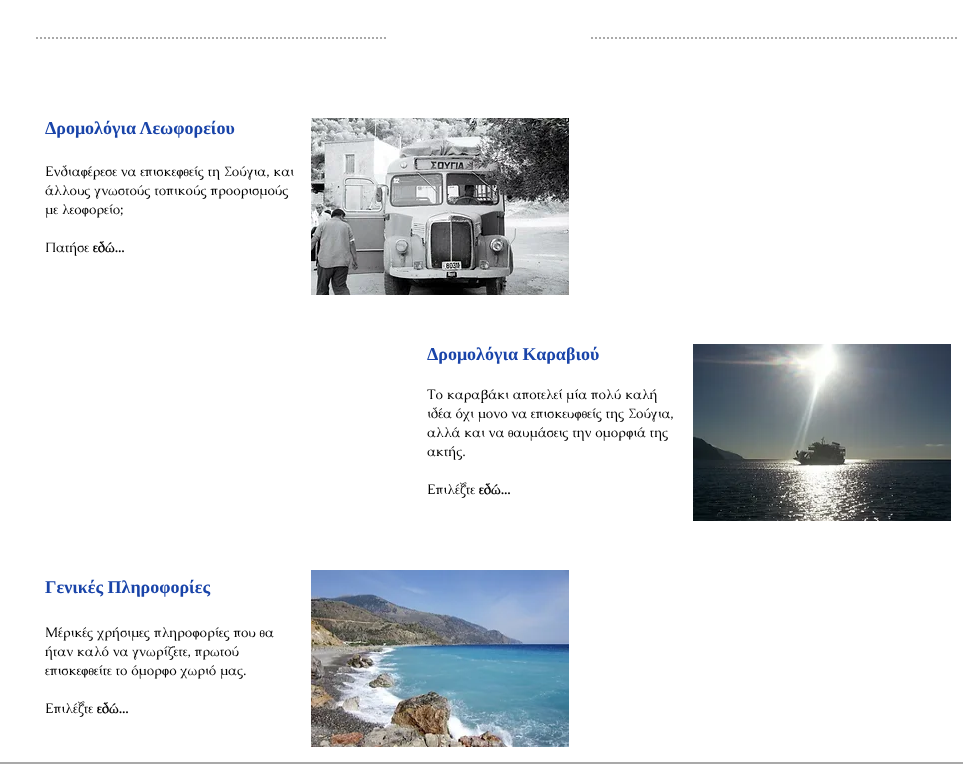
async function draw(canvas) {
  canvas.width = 963
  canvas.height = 765
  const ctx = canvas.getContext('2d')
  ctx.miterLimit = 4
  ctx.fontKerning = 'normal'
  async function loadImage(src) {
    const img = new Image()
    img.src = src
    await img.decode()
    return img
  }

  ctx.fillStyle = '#fff'
  ctx.fillRect(0, 0, 963, 765)
  ctx.beginPath()
  ctx.moveTo(36, 38)
  ctx.lineTo(387, 38)
  ctx.strokeStyle = '#a9a9a9'
  ctx.lineWidth = 2
  ctx.setLineDash([2, 2])
  ctx.stroke()
  ctx.beginPath()
  ctx.moveTo(591, 38)
  ctx.lineTo(958, 38)
  ctx.stroke()
  ctx.font = 'bold 18px Liberation Serif'
  ctx.fillStyle = '#1944a9'
  ctx.fillText('Δρομολόγια Λεωφορείου', 45, 134)
  ctx.drawImage(await loadImage('image0.png'), 311, 118, 258, 177)
  ctx.font = '14px Caudex'
  ctx.fillStyle = '#000'
  ctx.fillText('Ενδιαφέρεσε να επισκεφθείς τη Σούγια, και', 45, 176)
  ctx.fillText('άλλους γνωστούς τοπικούς προορισμούς', 45, 195)
  ctx.fillText('με λεοφορείο;', 45, 214)
  ctx.fillText('Πατήσε', 45, 252)
  ctx.font = 'bold 14px Caudex'
  ctx.fillText('εδώ...', 93, 252)
  ctx.font = 'bold 18px Liberation Serif'
  ctx.fillStyle = '#1944a9'
  ctx.fillText('Δρομολόγια Καραβιού', 427, 360)
  ctx.drawImage(await loadImage('image1.png'), 693, 344, 258, 177)
  ctx.font = '14px Caudex'
  ctx.fillStyle = '#000'
  ctx.fillText('Το καραβάκι αποτελεί μία πολύ καλή', 427, 399)
  ctx.fillText('ιδέα όχι μονο να επισκευφθείς της Σούγια,', 427, 418)
  ctx.fillText('αλλά και να θαυμάσεις την ομορφιά της', 427, 437)
  ctx.fillText('ακτής.', 427, 456)
  ctx.fillText('Επιλέξτε', 427, 494)
  ctx.font = 'bold 14px Caudex'
  ctx.fillText('εδώ...', 479, 494)
  ctx.font = 'bold 18px Liberation Serif'
  ctx.fillStyle = '#1944a9'
  ctx.fillText('Γενικές Πληροφορίες', 45, 593)
  ctx.drawImage(await loadImage('image2.png'), 311, 570, 258, 177)
  ctx.font = '14px Caudex'
  ctx.fillStyle = '#000'
  ctx.fillText('Μέρικές χρήσιμες πληροφορίες που θα', 45, 637)
  ctx.fillText('ήταν καλό να γνωρίζετε, πρωτού', 45, 656)
  ctx.fillText('επισκεφθείτε το όμορφο χωριό μας.', 45, 675)
  ctx.fillText('Επιλέξτε', 45, 713)
  ctx.font = 'bold 14px Caudex'
  ctx.fillText('εδώ...', 97, 713)
  ctx.fillStyle = '#a9a9a9'
  ctx.fillRect(0, 762, 963, 2)
}

draw(document.querySelector('canvas'))
